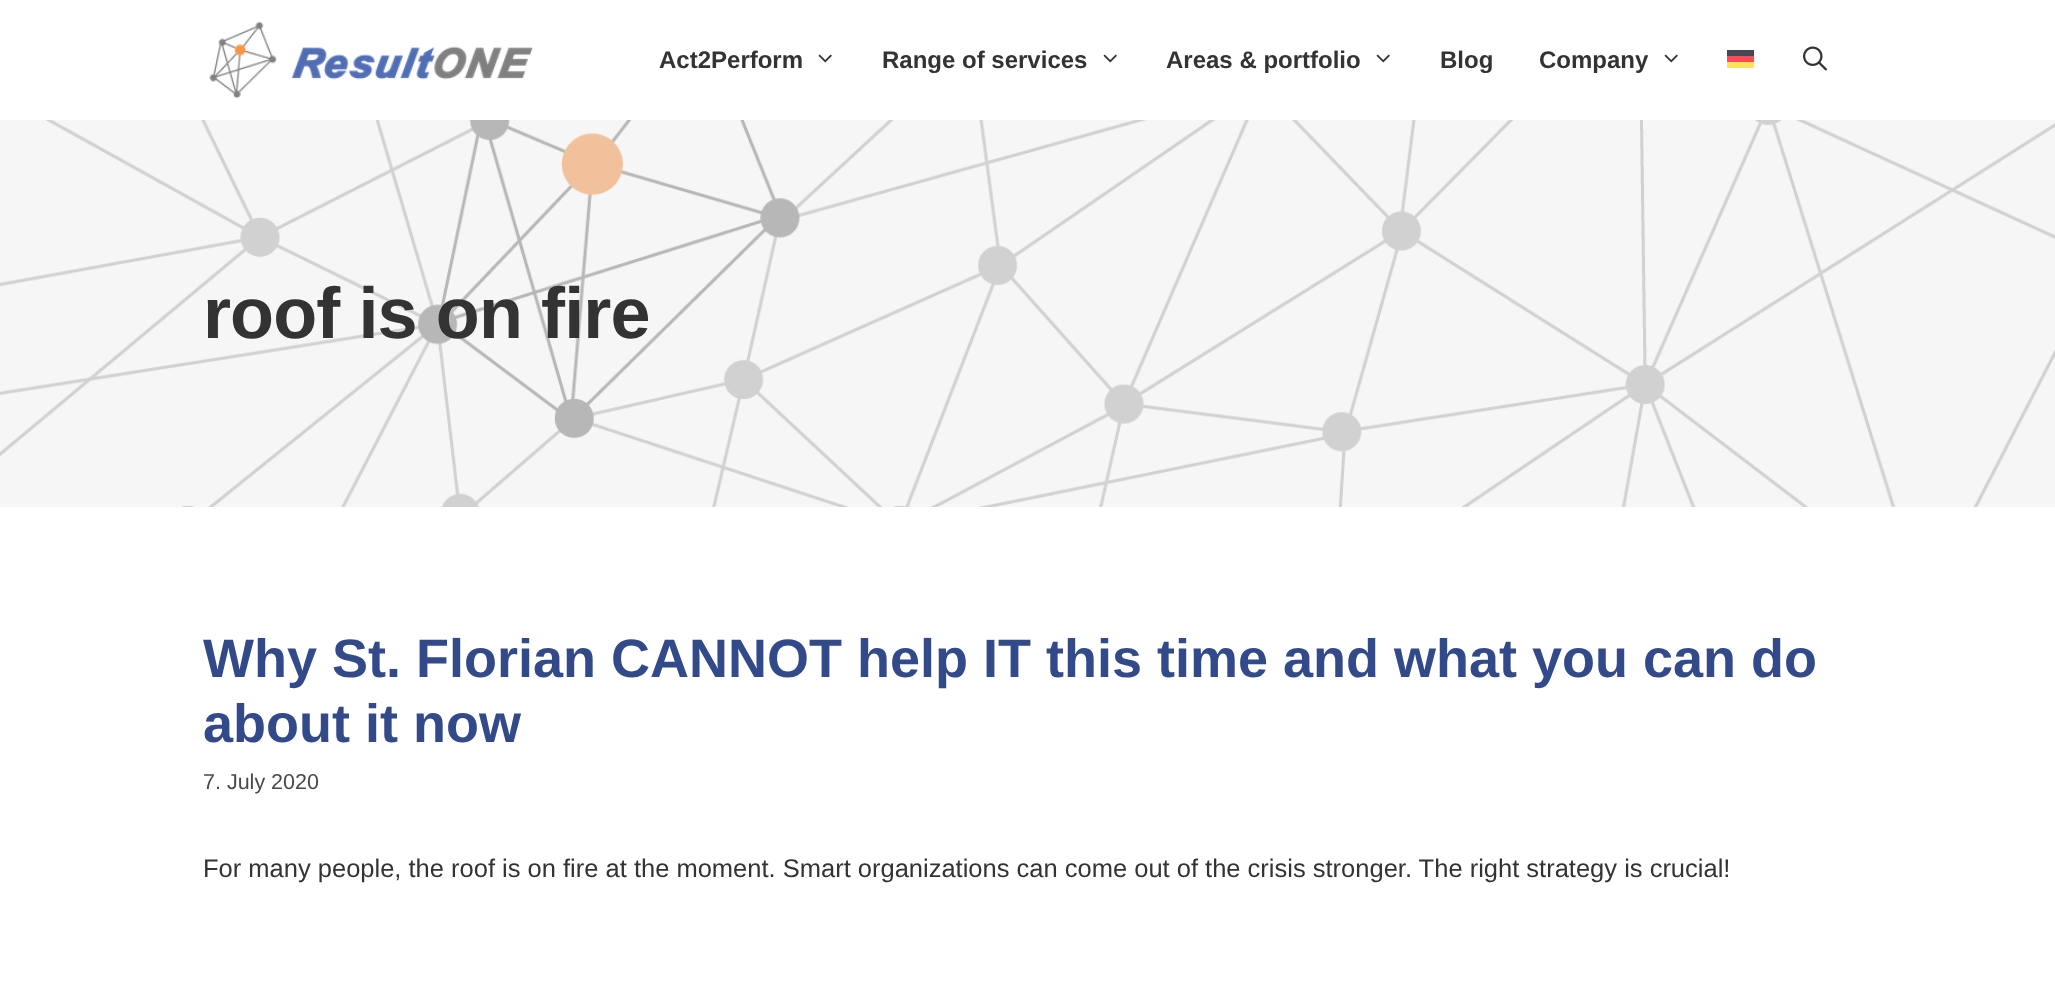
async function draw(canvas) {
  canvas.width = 2055
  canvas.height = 1004
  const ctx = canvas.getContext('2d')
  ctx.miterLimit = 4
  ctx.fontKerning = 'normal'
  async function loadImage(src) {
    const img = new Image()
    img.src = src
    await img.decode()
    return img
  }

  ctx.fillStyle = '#fff'
  ctx.fillRect(0, 0, 2055, 1004)
  ctx.drawImage(await loadImage('image0.png'), 209, 21, 325, 78)
  ctx.font = 'bold 24px Liberation Sans'
  ctx.fillStyle = '#333'
  ctx.fillText('Act2Perform', 659, 68)
  ctx.drawImage(await loadImage('image1.png'), 818, 54, 14, 9)
  ctx.fillText('Range of services', 882, 68)
  ctx.drawImage(await loadImage('image1.png'), 1103, 54, 14, 9)
  ctx.fillText('Areas & portfolio', 1166, 68)
  ctx.drawImage(await loadImage('image1.png'), 1376, 54, 14, 9)
  ctx.fillText('Blog', 1440, 68)
  ctx.fillText('Company', 1539, 68)
  ctx.drawImage(await loadImage('image1.png'), 1664, 54, 14, 9)
  ctx.fillStyle = '#ff4b55'
  ctx.fillRect(1727, 56, 27, 6)
  ctx.fillStyle = '#ffe15a'
  ctx.fillRect(1727, 62, 27, 6)
  ctx.fillStyle = '#464655'
  ctx.fillRect(1727, 50, 27, 6)
  ctx.drawImage(await loadImage('image2.png'), 1803, 46, 24, 25)
  ctx.drawImage(await loadImage('image3.png'), 0, 120, 2055, 387)
  ctx.letterSpacing = '-0.9px'
  ctx.font = 'bold 72px Liberation Sans'
  ctx.fillStyle = '#333'
  ctx.fillText('roof is on fire', 203, 338)
  ctx.letterSpacing = '0px'
  ctx.font = 'bold 54px Liberation Sans'
  ctx.fillStyle = '#334a8a'
  ctx.fillText('Why St. Florian CANNOT help IT this time and what you can do', 203, 677)
  ctx.fillText('about it now', 203, 742)
  ctx.font = '21.5px Liberation Sans'
  ctx.fillStyle = '#494949'
  ctx.fillText('7. July 2020', 203, 789)
  ctx.font = '25.5px Liberation Sans'
  ctx.fillStyle = '#333'
  ctx.fillText('For many people, the roof is on fire at the moment. Smart organizations can come out of the crisis stronger. The right strategy is crucial!', 203, 877)
}

draw(document.querySelector('canvas'))
